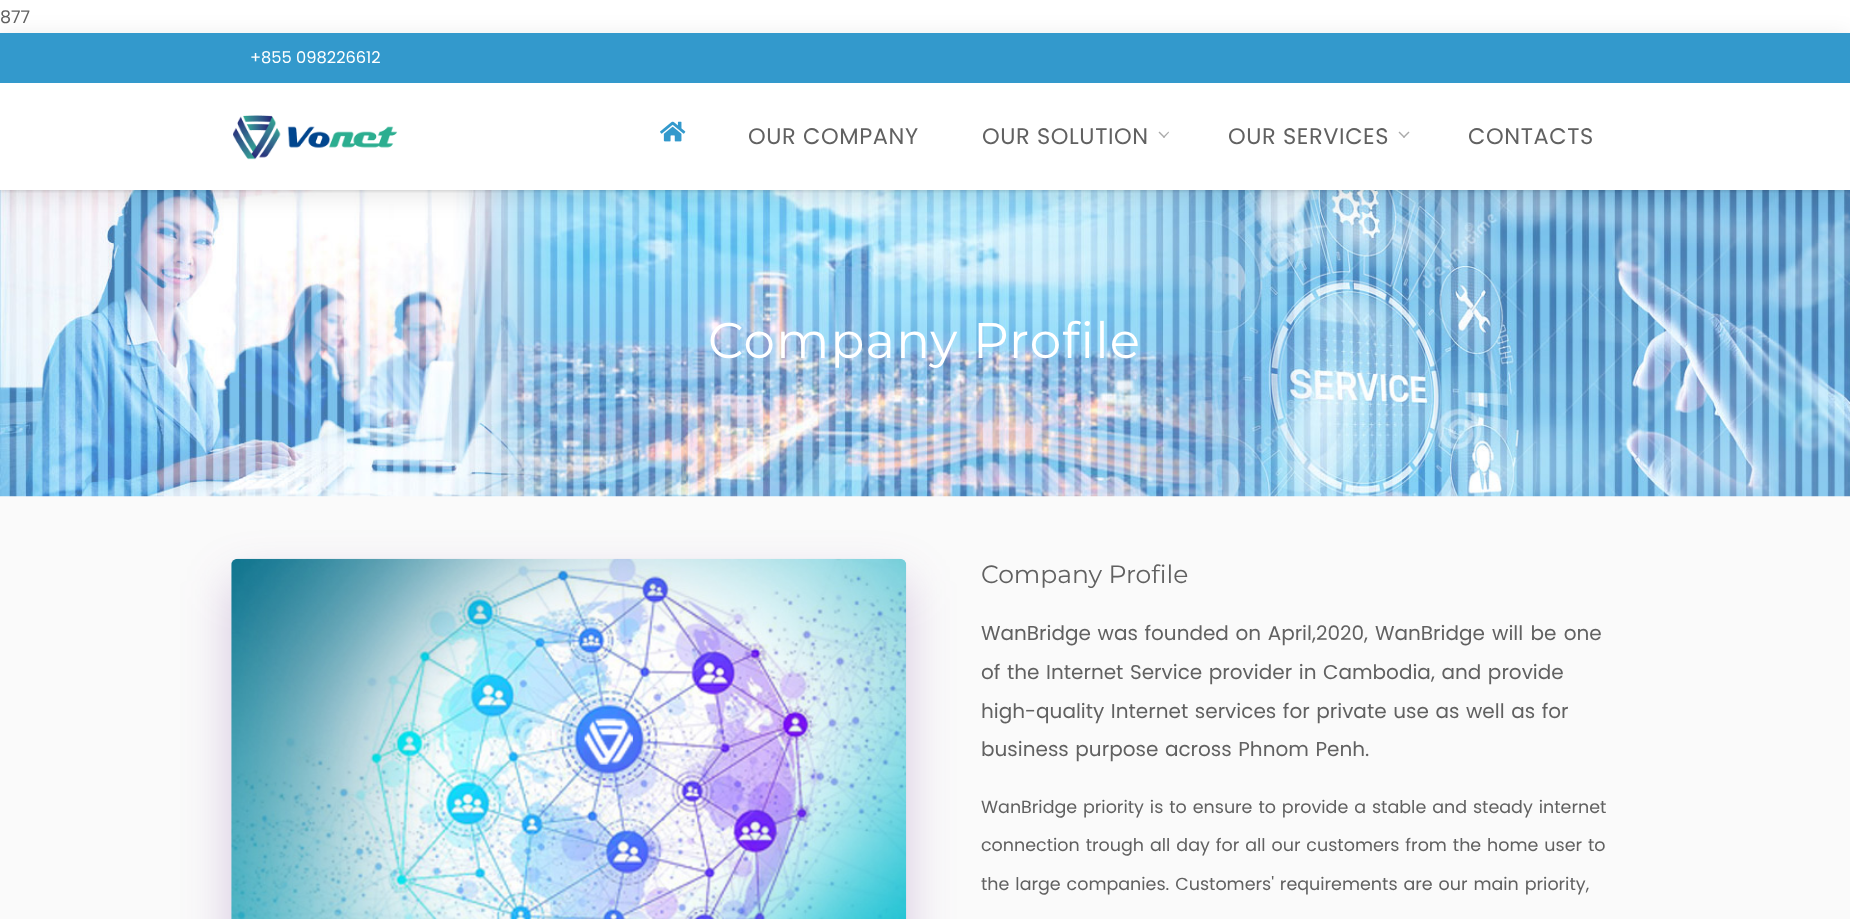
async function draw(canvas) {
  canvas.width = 1850
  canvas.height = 919
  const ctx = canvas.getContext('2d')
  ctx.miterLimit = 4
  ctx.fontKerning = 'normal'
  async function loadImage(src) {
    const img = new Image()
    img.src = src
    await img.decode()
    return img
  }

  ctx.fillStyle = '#fff'
  ctx.fillRect(0, 0, 1850, 919)
  ctx.font = '17.5px Poppins'
  ctx.fillStyle = '#616161'
  ctx.fillText('877', 0, 23)
  ctx.fillStyle = '#fafafa'
  ctx.fillRect(0, 496, 1850, 423)
  ctx.drawImage(await loadImage('image2.png'), 0, 190, 1850, 307)
  ctx.save()
  ctx.beginPath()
  ctx.moveTo(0, 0)
  ctx.lineTo(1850, 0)
  ctx.lineTo(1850, 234)
  ctx.lineTo(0, 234)
  ctx.closePath()
  ctx.moveTo(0, 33)
  ctx.lineTo(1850, 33)
  ctx.lineTo(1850, 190)
  ctx.lineTo(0, 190)
  ctx.closePath()
  ctx.clip('evenodd')
  ctx.fillStyle = '#0000001a'
  ctx.filter = 'blur(12.5px)'
  ctx.beginPath()
  ctx.rect(0, 38, 1850, 157)
  ctx.fill()
  ctx.filter = 'none'
  ctx.restore()
  ctx.save()
  ctx.beginPath()
  ctx.rect(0, 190, 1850, 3)
  ctx.clip()
  ctx.fillStyle = '#00000033'
  ctx.filter = 'blur(2px)'
  ctx.beginPath()
  ctx.rect(0, 83, 1850, 107)
  ctx.fill()
  ctx.filter = 'none'
  ctx.restore()
  ctx.fillStyle = '#39c'
  ctx.fillRect(0, 33, 1850, 50)
  ctx.font = '16.25px Poppins'
  ctx.fillStyle = '#fff'
  ctx.fillText('+855 098226612', 250, 63)
  ctx.drawImage(await loadImage('image0.png'), 233, 115, 165, 45)
  ctx.drawImage(await loadImage('image1.png'), 660, 121, 26, 21)
  ctx.letterSpacing = '0.6px'
  ctx.font = '22.5px Poppins'
  ctx.fillStyle = '#616161'
  ctx.fillText('OUR COMPANY', 748, 144)
  ctx.fillText('OUR SOLUTION', 982, 144)
  ctx.fillStyle = '#aaa'
  ctx.beginPath()
  ctx.moveTo(1168.5, 131.5)
  ctx.lineTo(1169, 132.5)
  ctx.lineTo(1164, 138)
  ctx.lineTo(1163, 137)
  ctx.closePath()
  ctx.fill()
  ctx.beginPath()
  ctx.moveTo(1159.5, 131.5)
  ctx.lineTo(1165, 137)
  ctx.lineTo(1164, 138)
  ctx.lineTo(1158.5, 132.5)
  ctx.closePath()
  ctx.fill()
  ctx.fillStyle = '#616161'
  ctx.fillText('OUR SERVICES', 1228, 144)
  ctx.fillStyle = '#aaa'
  ctx.beginPath()
  ctx.moveTo(1408.5, 131.5)
  ctx.lineTo(1409.5, 132.5)
  ctx.lineTo(1404, 138)
  ctx.lineTo(1403, 137)
  ctx.closePath()
  ctx.fill()
  ctx.beginPath()
  ctx.moveTo(1399.5, 131.5)
  ctx.lineTo(1405, 137)
  ctx.lineTo(1404, 138)
  ctx.lineTo(1398.5, 132.5)
  ctx.closePath()
  ctx.fill()
  ctx.fillStyle = '#616161'
  ctx.fillText('CONTACTS', 1468, 144)
  ctx.letterSpacing = '1.25px'
  ctx.font = '50px Montserrat'
  ctx.fillStyle = '#fff'
  ctx.fillText('Company Profile', 708, 358)
  ctx.fillStyle = '#662d9140'
  ctx.filter = 'blur(24px)'
  ctx.beginPath()
  ctx.roundRect(231, 581, 675, 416, 6)
  ctx.fill()
  ctx.filter = 'none'
  ctx.drawImage(await loadImage('image3.png'), 231, 558, 676, 361)
  ctx.letterSpacing = '0px'
  ctx.font = '25px Montserrat'
  ctx.fillStyle = '#616161'
  ctx.fillText('Company Profile', 981, 583)
  ctx.wordSpacing = '1.25px'
  ctx.font = '20px Poppins'
  ctx.fillText('WanBridge was founded on April,2020,', 981, 640)
  ctx.wordSpacing = '0px'
  ctx.fillText('WanBridge', 1375, 640)
  ctx.wordSpacing = '2px'
  ctx.fillText('will be one', 1492, 640)
  ctx.wordSpacing = '1.25px'
  ctx.fillText('of the Internet Service provider in Cambodia, and provide', 981, 679)
  ctx.fillText('high-quality Internet services for private use as well as for', 981, 718)
  ctx.fillText('business purpose across Phnom Penh.', 981, 756)
  ctx.wordSpacing = '0px'
  ctx.font = '17.5px Poppins'
  ctx.fillText('WanBridge', 981, 813)
  ctx.wordSpacing = '1.25px'
  ctx.fillText('priority is to ensure to provide a stable and steady internet', 1083, 813)
  ctx.fillText('connection trough all day for all our customers from the home user to', 981, 851)
  ctx.fillText('the large companies. Customers\' requirements are our main priority,', 981, 890)
}

draw(document.querySelector('canvas'))
